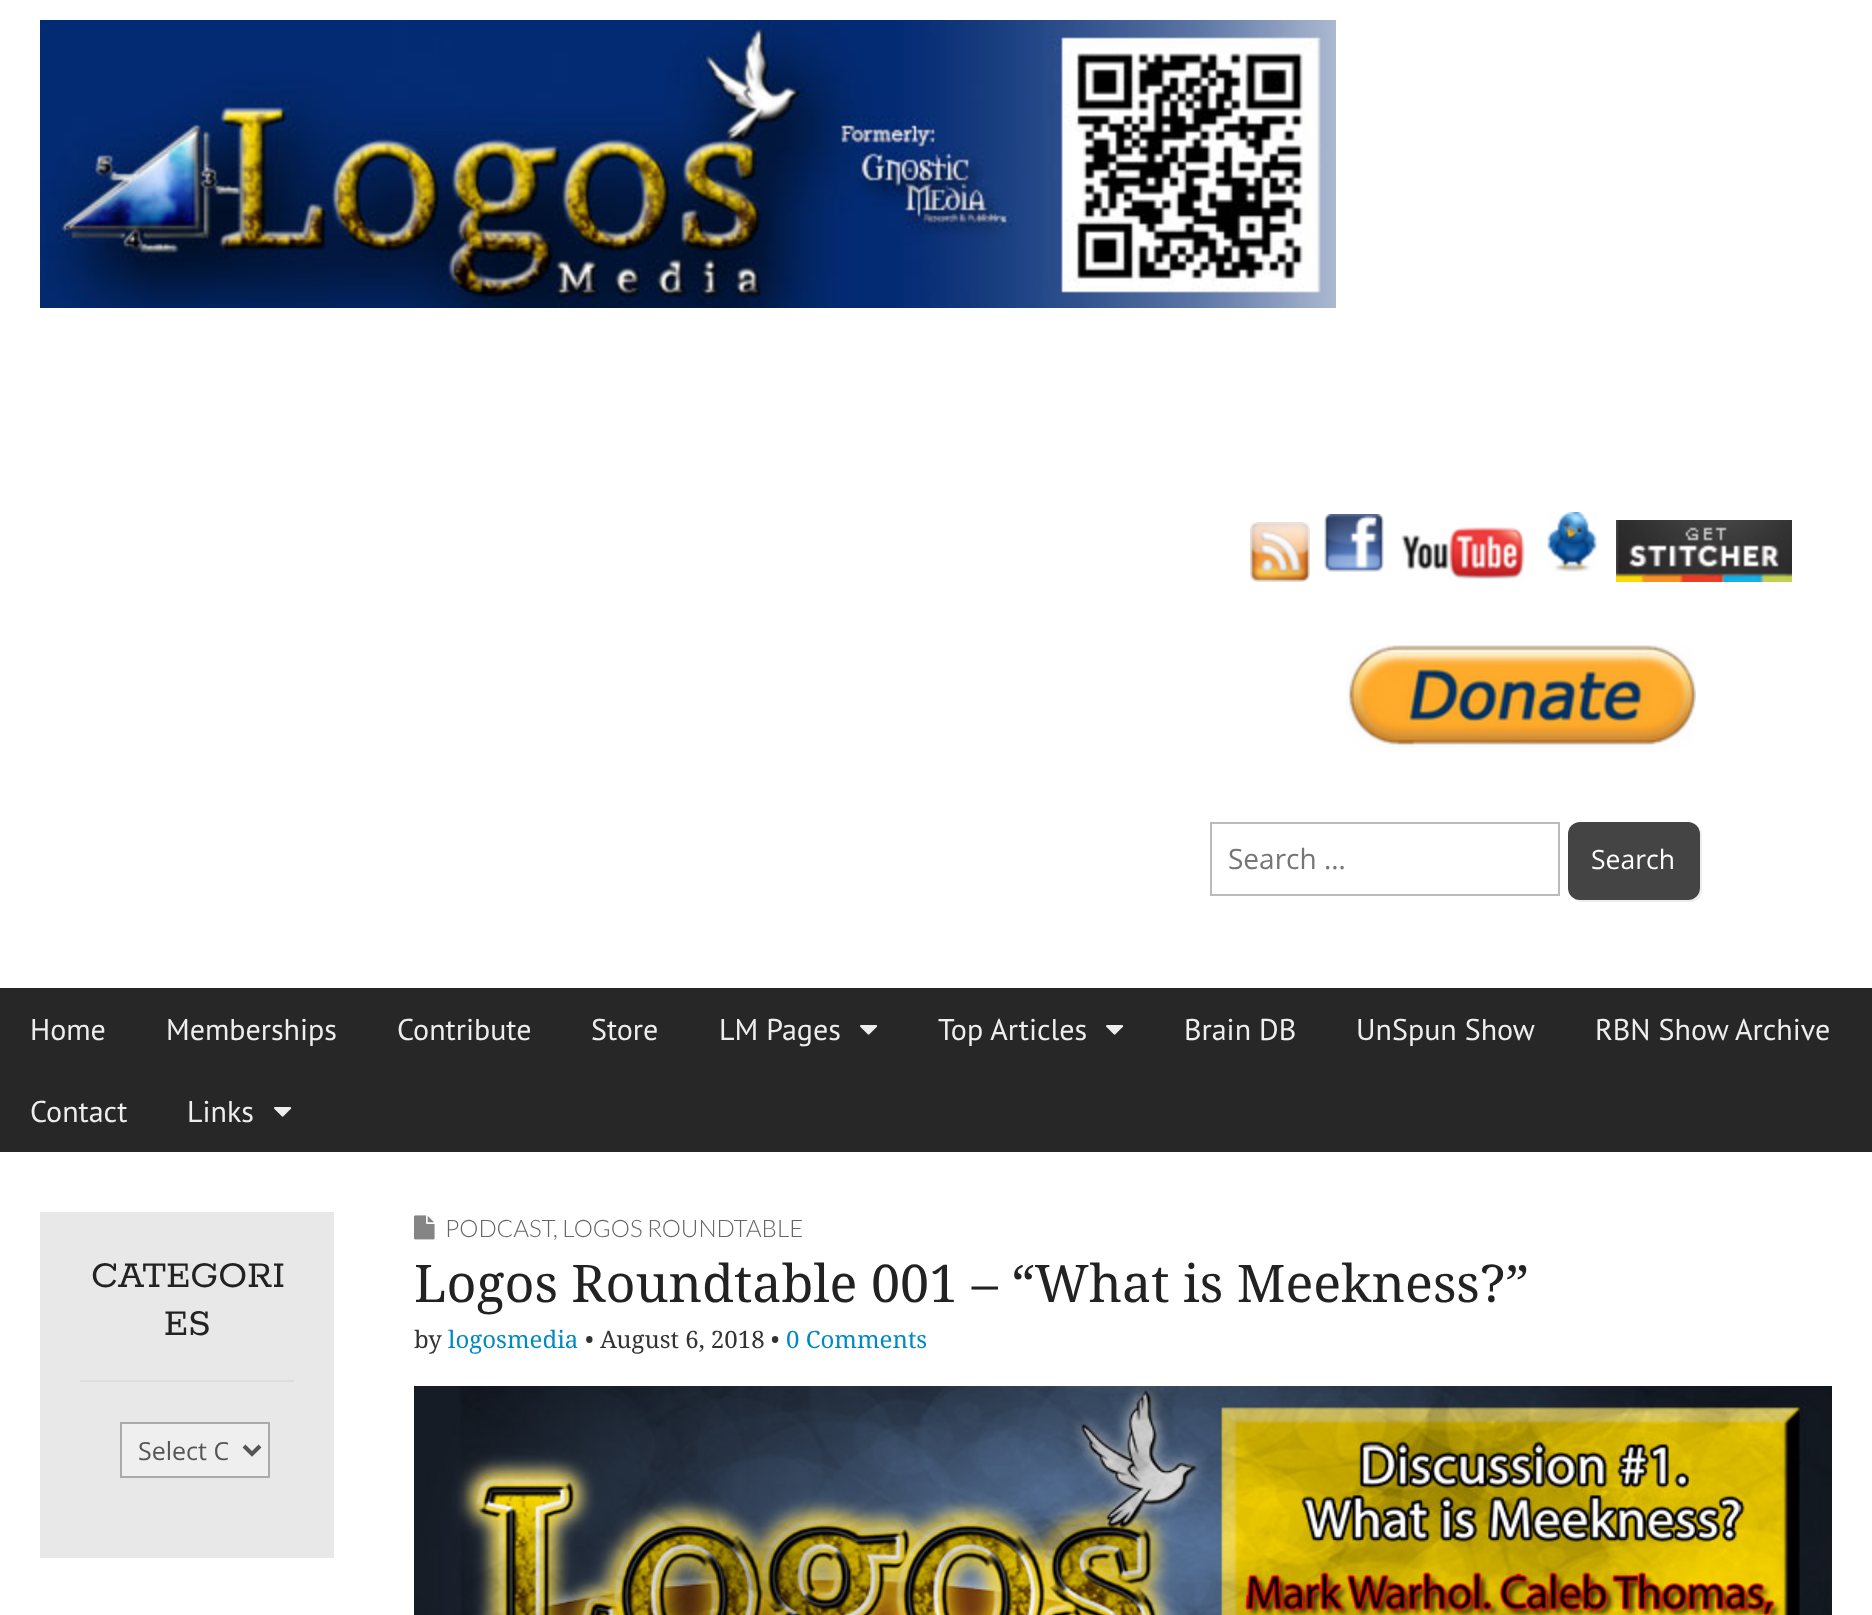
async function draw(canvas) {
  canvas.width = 1872
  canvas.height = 1615
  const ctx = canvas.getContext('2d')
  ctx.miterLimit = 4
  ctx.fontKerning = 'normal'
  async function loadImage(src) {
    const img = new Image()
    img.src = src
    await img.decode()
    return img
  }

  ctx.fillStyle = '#fff'
  ctx.fillRect(0, 0, 1872, 1615)
  ctx.drawImage(await loadImage('image0.png'), 40, 20, 1296, 288)
  ctx.drawImage(await loadImage('image1.png'), 1250, 522, 60, 60)
  ctx.drawImage(await loadImage('image2.png'), 1324, 514, 60, 58)
  ctx.drawImage(await loadImage('image3.png'), 1401, 527, 124, 54)
  ctx.drawImage(await loadImage('image4.png'), 1547, 512, 50, 60)
  ctx.drawImage(await loadImage('image5.png'), 1616, 520, 176, 62)
  ctx.drawImage(await loadImage('image6.png'), 1346, 645, 350, 103)
  ctx.strokeStyle = '#bbb'
  ctx.lineWidth = 2
  ctx.strokeRect(1211, 823, 348, 72)
  ctx.font = '28px Open Sans'
  ctx.fillStyle = '#757575'
  ctx.fillText('Search …', 1228, 869)
  ctx.fillStyle = '#eee'
  ctx.beginPath()
  ctx.moveTo(1573, 897)
  ctx.bezierCurveTo(1575, 900, 1578, 902, 1582, 902)
  ctx.lineTo(1690, 902)
  ctx.bezierCurveTo(1697, 902, 1702, 897, 1702, 890)
  ctx.lineTo(1702, 836)
  ctx.bezierCurveTo(1702, 832, 1700, 829, 1697, 827)
  ctx.bezierCurveTo(1699, 829, 1700, 831, 1700, 834)
  ctx.lineTo(1700, 888)
  ctx.bezierCurveTo(1700, 895, 1695, 900, 1688, 900)
  ctx.lineTo(1580, 900)
  ctx.bezierCurveTo(1577, 900, 1575, 899, 1573, 897)
  ctx.closePath()
  ctx.fill()
  ctx.fillStyle = '#444'
  ctx.beginPath()
  ctx.roundRect(1568, 822, 132, 78, 12)
  ctx.fill()
  ctx.font = '26.5px Open Sans'
  ctx.fillStyle = '#fff'
  ctx.fillText('Search', 1591, 869)
  ctx.fillStyle = '#272727'
  ctx.fillRect(0, 988, 1872, 164)
  ctx.font = '30px PT Sans'
  ctx.fillStyle = '#eee'
  ctx.fillText('Home', 30, 1040)
  ctx.fillText('Memberships', 166, 1040)
  ctx.fillText('Contribute', 397, 1040)
  ctx.fillText('Store', 591, 1040)
  ctx.fillText('LM Pages', 719, 1040)
  ctx.drawImage(await loadImage('image7.png'), 860, 1025, 18, 10)
  ctx.fillText('Top Articles', 938, 1040)
  ctx.drawImage(await loadImage('image7.png'), 1106, 1025, 18, 10)
  ctx.fillText('Brain DB', 1184, 1040)
  ctx.fillText('UnSpun Show', 1356, 1040)
  ctx.fillText('RBN Show Archive', 1595, 1040)
  ctx.fillText('Contact', 30, 1122)
  ctx.fillText('Links', 187, 1122)
  ctx.drawImage(await loadImage('image7.png'), 274, 1107, 18, 10)
  ctx.fillStyle = '#e8e8e8'
  ctx.fillRect(40, 1212, 294, 346)
  ctx.fillStyle = '#ddd'
  ctx.fillRect(80, 1380, 214, 2)
  ctx.font = '600 40.5px Rokkitt'
  ctx.fillStyle = '#222'
  ctx.fillText('CATEGORI', 91, 1287)
  ctx.fillText('ES', 164, 1335)
  ctx.fillStyle = '#efefef'
  ctx.beginPath()
  ctx.rect(121, 1423, 148, 54)
  ctx.fill()
  ctx.strokeStyle = '#aaa'
  ctx.stroke()
  ctx.beginPath()
  ctx.moveTo(244, 1446)
  ctx.lineTo(252, 1454)
  ctx.lineTo(260, 1446)
  ctx.strokeStyle = '#555'
  ctx.lineWidth = 4
  ctx.stroke()
  ctx.save()
  ctx.beginPath()
  ctx.rect(138, 1432, 90, 38)
  ctx.clip()
  ctx.font = '25px Open Sans'
  ctx.fillStyle = '#555'
  ctx.fillText('Select C', 138, 1460)
  ctx.restore()
  ctx.drawImage(await loadImage('image8.png'), 414, 1215, 21, 25)
  ctx.font = '300 24px Lato'
  ctx.fillStyle = '#666'
  ctx.fillText('PODCAST', 445, 1237)
  ctx.fillText(', LOGOS ROUNDTABLE', 553, 1237)
  ctx.font = '52px Droid Serif'
  ctx.fillStyle = '#222'
  ctx.fillText('Logos Roundtable 001 – “What is Meekness?”', 414, 1302)
  ctx.font = '24px Droid Serif'
  ctx.fillStyle = '#333'
  ctx.fillText('by', 414, 1348)
  ctx.fillStyle = '#0089c4'
  ctx.fillText('logosmedia', 448, 1348)
  ctx.fillStyle = '#333'
  ctx.fillText('• August 6, 2018 •', 585, 1348)
  ctx.fillStyle = '#0089c4'
  ctx.fillText('0 Comments', 786, 1348)
  ctx.drawImage(await loadImage('image9.png'), 414, 1386, 1418, 229)
}

draw(document.querySelector('canvas'))
